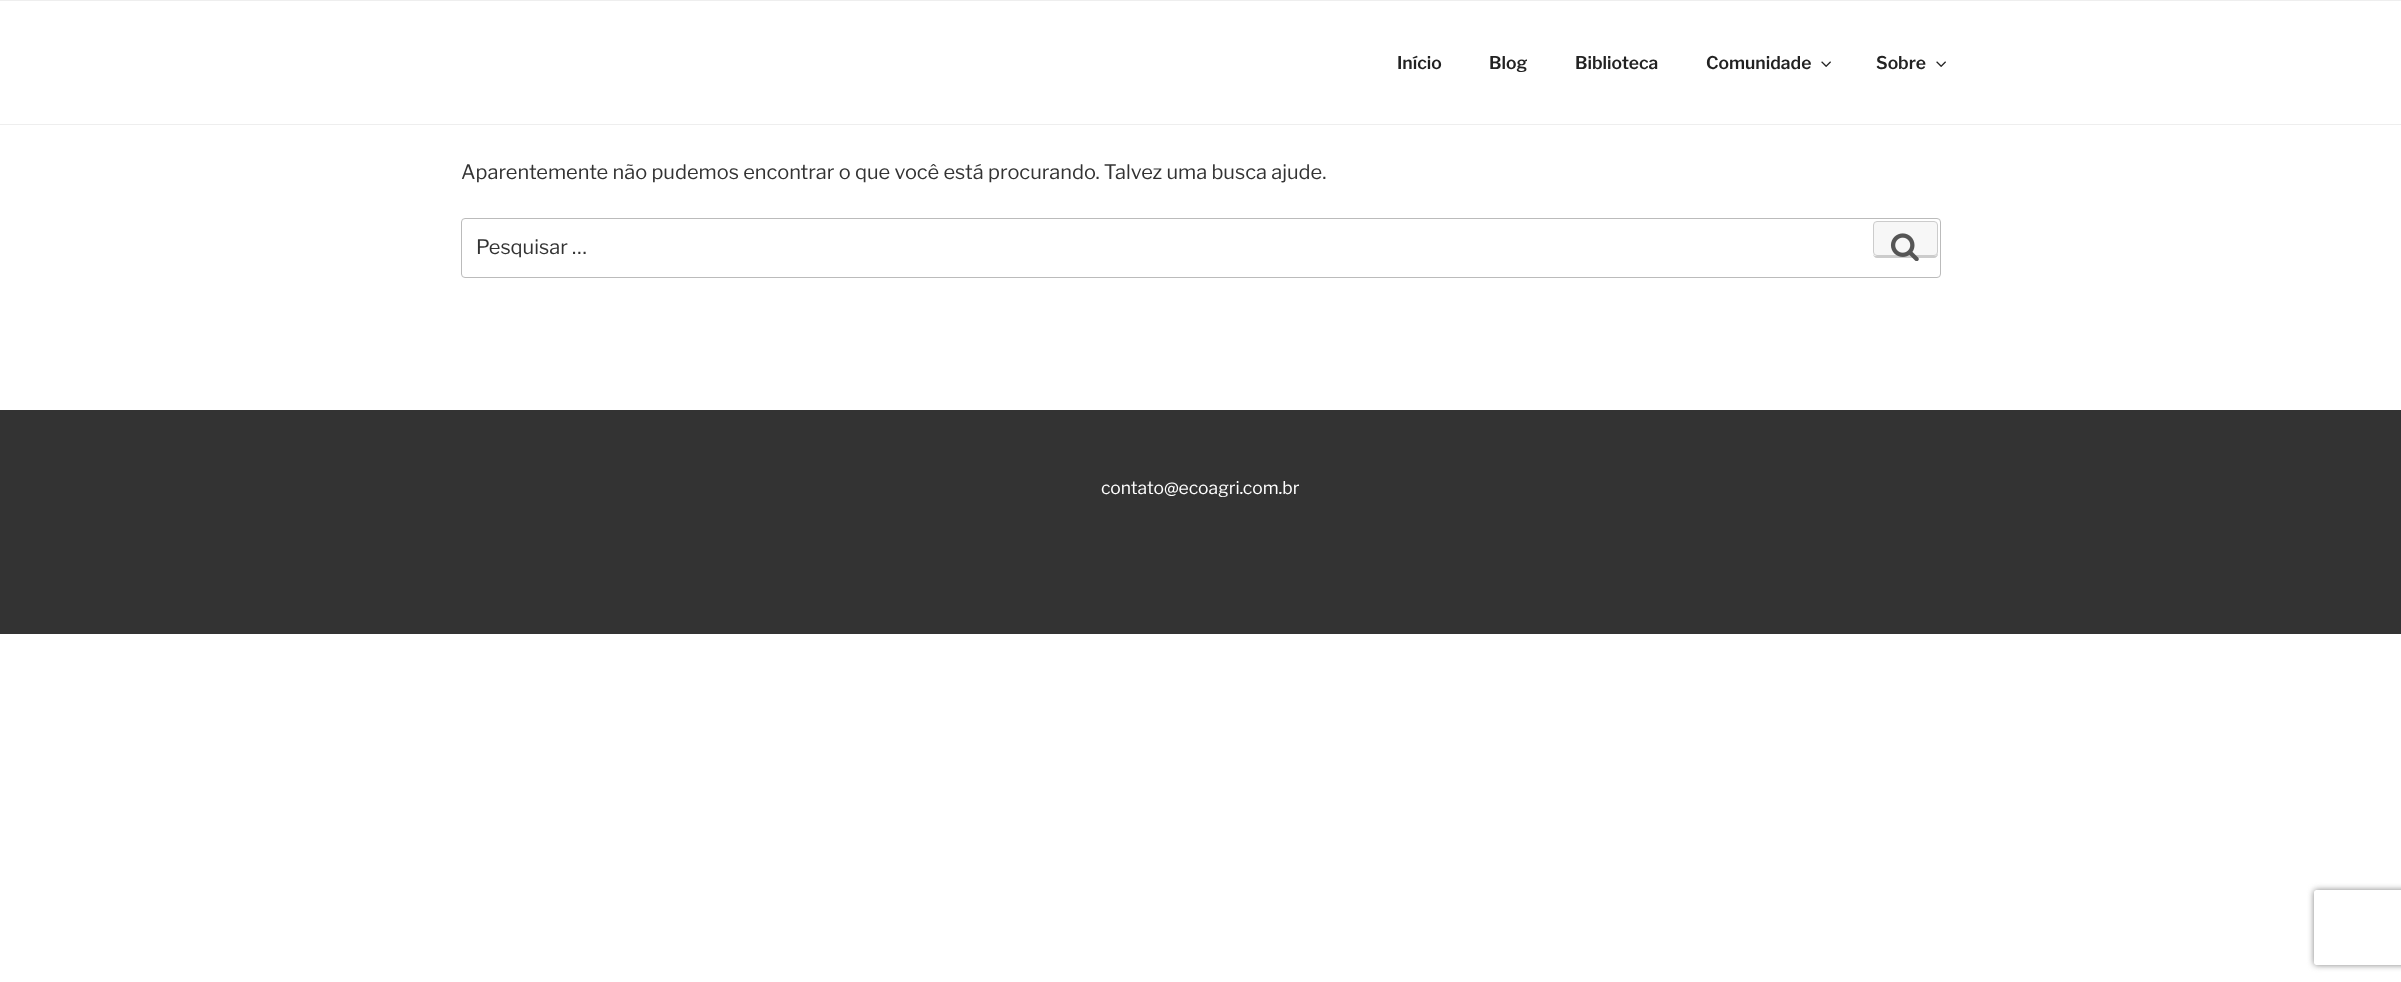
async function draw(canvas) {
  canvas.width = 2401
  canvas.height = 982
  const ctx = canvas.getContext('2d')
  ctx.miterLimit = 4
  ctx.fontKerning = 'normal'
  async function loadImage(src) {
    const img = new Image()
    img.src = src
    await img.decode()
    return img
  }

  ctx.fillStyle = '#fff'
  ctx.fillRect(0, 0, 2401, 982)
  ctx.fillStyle = '#eee'
  ctx.fillRect(0, 0, 2401, 1)
  ctx.fillRect(0, 124, 2401, 1)
  ctx.font = '100 17.5px "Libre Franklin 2"'
  ctx.fillStyle = '#222'
  ctx.fillText('Início', 1397, 69)
  ctx.fillText('Blog', 1489, 69)
  ctx.fillText('Biblioteca', 1575, 69)
  ctx.fillText('Comunidade', 1706, 69)
  ctx.drawImage(await loadImage('image0.png'), 1821, 61, 10, 6)
  ctx.fillText('Sobre', 1876, 69)
  ctx.drawImage(await loadImage('image0.png'), 1936, 61, 10, 6)
  ctx.font = '100 20px Libre Franklin'
  ctx.fillStyle = '#333'
  ctx.fillText('Aparentemente não pudemos encontrar o que você está procurando. Talvez uma busca ajude.', 461, 179)
  ctx.beginPath()
  ctx.roundRect(461.5, 218.5, 1479, 59, 3.5)
  ctx.strokeStyle = '#bbb'
  ctx.stroke()
  ctx.fillText('Pesquisar …', 476, 254)
  ctx.fillStyle = '#ccc'
  ctx.beginPath()
  ctx.moveTo(1873, 254)
  ctx.bezierCurveTo(1873, 256, 1875, 258, 1877, 258)
  ctx.lineTo(1934, 258)
  ctx.bezierCurveTo(1936, 258, 1938, 256, 1938, 254)
  ctx.lineTo(1938, 227)
  ctx.lineTo(1938, 225)
  ctx.lineTo(1938, 252)
  ctx.bezierCurveTo(1938, 255, 1936, 256, 1934, 256)
  ctx.lineTo(1876, 256)
  ctx.bezierCurveTo(1875, 256, 1874, 256, 1873, 254)
  ctx.closePath()
  ctx.fill()
  ctx.fillStyle = '#f7f7f7'
  ctx.beginPath()
  ctx.roundRect(1873.5, 221.5, 64, 34, 3.5)
  ctx.fill()
  ctx.strokeStyle = '#ccc'
  ctx.stroke()
  ctx.drawImage(await loadImage('image1.png'), 1890, 233, 29, 28)
  ctx.fillStyle = '#333'
  ctx.fillRect(0, 410, 2401, 224)
  ctx.font = '100 17.5px Libre Franklin'
  ctx.fillStyle = '#fff'
  ctx.fillText('contato@ecoagri.com.br', 1101, 494)
  ctx.save()
  ctx.beginPath()
  ctx.moveTo(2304, 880)
  ctx.lineTo(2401, 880)
  ctx.lineTo(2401, 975)
  ctx.lineTo(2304, 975)
  ctx.closePath()
  ctx.moveTo(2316.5, 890)
  ctx.lineTo(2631.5, 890)
  ctx.bezierCurveTo(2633, 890, 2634, 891, 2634, 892.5)
  ctx.lineTo(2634, 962.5)
  ctx.bezierCurveTo(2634, 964, 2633, 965, 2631.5, 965)
  ctx.lineTo(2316.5, 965)
  ctx.bezierCurveTo(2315, 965, 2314, 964, 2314, 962.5)
  ctx.lineTo(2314, 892.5)
  ctx.bezierCurveTo(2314, 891, 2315, 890, 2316.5, 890)
  ctx.closePath()
  ctx.clip('evenodd')
  ctx.fillStyle = '#808080'
  ctx.filter = 'blur(3px)'
  ctx.beginPath()
  ctx.roundRect(2314, 890, 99, 75, 2.5)
  ctx.fill()
  ctx.filter = 'none'
  ctx.restore()
}

draw(document.querySelector('canvas'))
